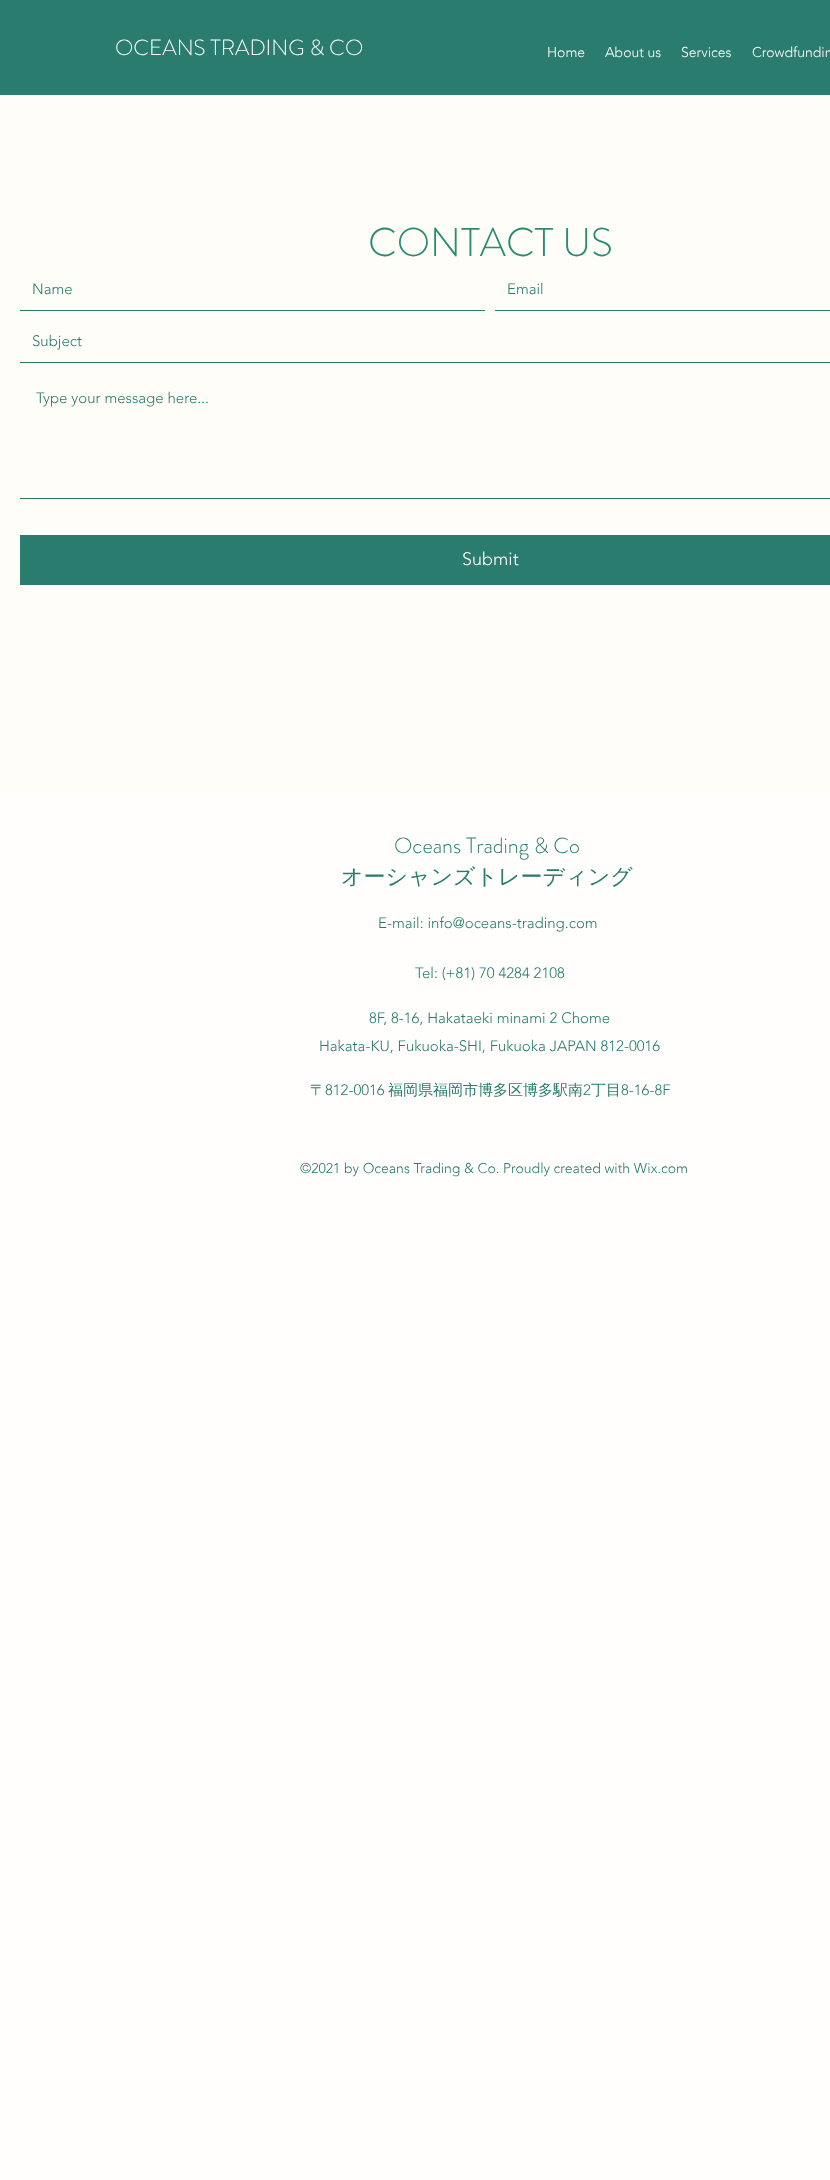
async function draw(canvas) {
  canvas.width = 830
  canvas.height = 2180
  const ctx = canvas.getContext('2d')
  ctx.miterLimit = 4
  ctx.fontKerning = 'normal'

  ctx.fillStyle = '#fffefc'
  ctx.fillRect(0, 0, 830, 2180)
  ctx.fillStyle = '#2a7c6f'
  ctx.fillRect(0, 0, 830, 95)
  ctx.font = '300 22px "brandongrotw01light"'
  ctx.fillStyle = '#fffefc'
  ctx.fillText('OCEANS TRADING & CO', 115, 55)
  ctx.font = '300 14px "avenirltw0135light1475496"'
  ctx.fillText('Home', 547, 57)
  ctx.fillText('About us', 605, 57)
  ctx.fillText('Services', 681, 57)
  ctx.fillText('Crowdfundin', 752, 57)
  ctx.fillStyle = '#fffdf8'
  ctx.fillRect(0, 95, 830, 700)
  ctx.font = '300 40px "brandongrotw01light"'
  ctx.fillStyle = '#298d74'
  ctx.fillText('CONTACT US', 368, 256)
  ctx.fillStyle = '#2a7c6f'
  ctx.fillRect(20, 310, 465, 1)
  ctx.font = '300 15px "avenirltw0135light1475496"'
  ctx.fillText('Name', 32, 294)
  ctx.fillRect(495, 310, 335, 1)
  ctx.fillText('Email', 507, 294)
  ctx.fillRect(20, 362, 810, 1)
  ctx.fillText('Subject', 32, 346)
  ctx.fillRect(20, 498, 810, 1)
  ctx.fillText('Type your message here...', 36, 403)
  ctx.fillRect(20, 535, 810, 50)
  ctx.font = '300 18px "avenirltw0135light1475496"'
  ctx.fillStyle = '#fffefc'
  ctx.fillText('Submit', 462, 565)
  ctx.font = '300 22px "brandongrotw01light"'
  ctx.fillStyle = '#2a7c6f'
  ctx.fillText('Oceans Trading & Co', 394, 853)
  ctx.font = '500 22px WenQuanYi Zen Hei'
  ctx.fillText('オーシャンズトレーディング', 341, 884)
  ctx.font = '300 15px "avenirltw0135light1475496"'
  ctx.fillText('E-mail: info@oceans-trading.com', 378, 928)
  ctx.fillText('Tel: (+81) 70 4284 2108', 415, 978)
  ctx.fillText('8F, 8-16, Hakataeki minami 2 Chome', 369, 1023)
  ctx.fillText('Hakata-KU, Fukuoka-SHI, Fukuoka JAPAN 812-0016', 319, 1051)
  ctx.font = '500 15px WenQuanYi Zen Hei'
  ctx.fillText('〒', 310, 1095)
  ctx.font = '300 15px "avenirltw0135light1475496"'
  ctx.fillText('812-0016', 325, 1095)
  ctx.font = '500 15px WenQuanYi Zen Hei'
  ctx.fillText('福岡県福岡市博多区博多駅南', 388, 1095)
  ctx.font = '300 15px "avenirltw0135light1475496"'
  ctx.fillText('2', 583, 1095)
  ctx.font = '500 15px WenQuanYi Zen Hei'
  ctx.fillText('丁目', 591, 1095)
  ctx.font = '300 15px "avenirltw0135light1475496"'
  ctx.fillText('8-16-8F', 621, 1095)
  ctx.font = '300 14px "avenirltw0135light1475496"'
  ctx.fillText('©2021 by Oceans Trading & Co. Proudly created with Wix.com', 300, 1173)
}

draw(document.querySelector('canvas'))
